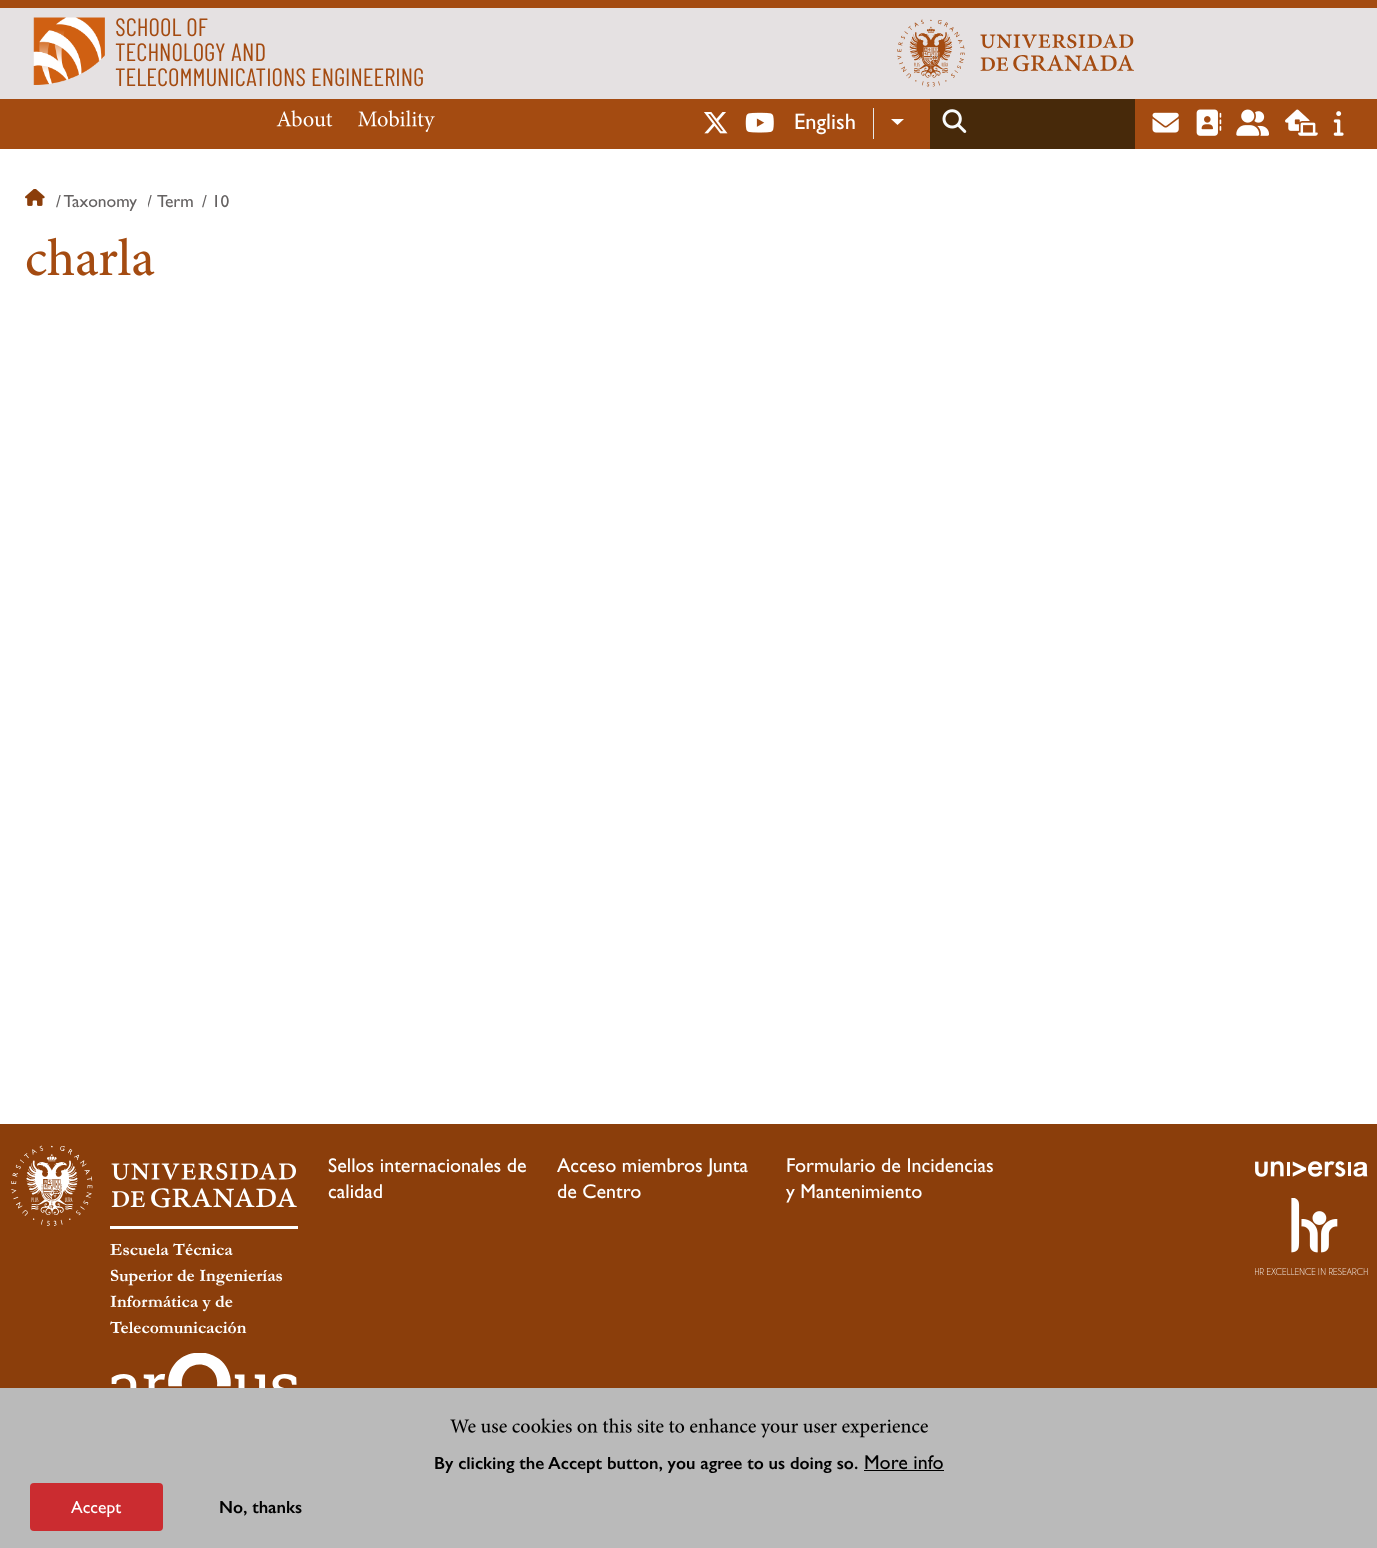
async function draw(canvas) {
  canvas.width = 1377
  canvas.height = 1548
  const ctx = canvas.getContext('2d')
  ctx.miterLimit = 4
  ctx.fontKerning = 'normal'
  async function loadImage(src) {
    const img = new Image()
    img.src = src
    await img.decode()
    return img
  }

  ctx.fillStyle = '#fff'
  ctx.fillRect(0, 0, 1377, 1548)
  ctx.fillStyle = '#a44b11'
  ctx.fillRect(0, 0, 1377, 8)
  ctx.fillRect(0, 99, 1377, 50)
  ctx.fillStyle = '#e5e1e2'
  ctx.fillRect(0, 8, 1377, 91)
  ctx.drawImage(await loadImage('image0.png'), 33, 17, 72, 68)
  ctx.font = '25px Barlow Condensed'
  ctx.fillStyle = '#a44b11'
  ctx.fillText('SCHOOL OF', 115, 36)
  ctx.fillText('TECHNOLOGY AND', 115, 61)
  ctx.fillText('TELECOMMUNICATIONS ENGINEERING', 115, 86)
  ctx.drawImage(await loadImage('image1.png'), 897, 19, 237, 68)
  ctx.drawImage(await loadImage('image2.png'), 276, 110, 57, 17)
  ctx.drawImage(await loadImage('image3.png'), 358, 110, 77, 22)
  ctx.drawImage(await loadImage('image4.png'), 704, 112, 24, 22)
  ctx.drawImage(await loadImage('image5.png'), 745, 112, 29, 21)
  ctx.fillStyle = '#e8e8e8'
  ctx.fillRect(873, 108, 1, 31)
  ctx.font = '22.5px Gill Sans'
  ctx.fillStyle = '#fff'
  ctx.fillText('English', 794, 129)
  ctx.beginPath()
  ctx.moveTo(891, 119)
  ctx.lineTo(904, 119)
  ctx.lineTo(897.5, 125)
  ctx.closePath()
  ctx.fill()
  ctx.fillStyle = '#47290a'
  ctx.fillRect(930, 99, 205, 50)
  ctx.drawImage(await loadImage('image6.png'), 942, 109, 25, 24)
  ctx.drawImage(await loadImage('image7.png'), 1152, 112, 27, 21)
  ctx.drawImage(await loadImage('image8.png'), 1196, 109, 26, 27)
  ctx.drawImage(await loadImage('image9.png'), 1236, 109, 33, 27)
  ctx.drawImage(await loadImage('image10.png'), 1285, 109, 33, 27)
  ctx.drawImage(await loadImage('image11.png'), 1333, 111, 11, 25)
  ctx.drawImage(await loadImage('image12.png'), 25, 189, 20, 17)
  ctx.font = '17.5px Gill Sans'
  ctx.fillStyle = '#656262'
  ctx.fillText('/ Taxonomy', 56, 207)
  ctx.save()
  ctx.beginPath()
  ctx.rect(148, 189, 48, 25)
  ctx.clip()
  ctx.fillText('/', 147, 207)
  ctx.restore()
  ctx.fillText('Term', 157, 207)
  ctx.fillText('/ 10', 202, 207)
  ctx.drawImage(await loadImage('image13.png'), 26, 237, 129, 39)
  ctx.fillStyle = '#8b3e0b'
  ctx.fillRect(0, 1124, 1377, 264)
  ctx.font = '20px Gill Sans'
  ctx.fillStyle = '#fff'
  ctx.fillText('Sellos internacionales de', 328, 1172)
  ctx.fillText('calidad', 328, 1198)
  ctx.fillText('Acceso miembros Junta', 557, 1172)
  ctx.fillText('de Centro', 557, 1198)
  ctx.fillText('Formulario de Incidencias', 786, 1172)
  ctx.fillText('y Mantenimiento', 786, 1198)
  ctx.drawImage(await loadImage('image14.png'), 1255, 1161, 113, 16)
  ctx.drawImage(await loadImage('image15.png'), 1255, 1198, 113, 77)
  ctx.drawImage(await loadImage('image16.png'), 11, 1145, 286, 81)
  ctx.fillRect(110, 1226, 188, 3)
  ctx.font = 'bold 17.5px Garamond'
  ctx.fillText('Escuela Técnica', 110, 1255)
  ctx.fillText('Superior de Ingenierías', 110, 1281)
  ctx.fillText('Informática y de', 110, 1307)
  ctx.fillText('Telecomunicación', 110, 1333)
  ctx.drawImage(await loadImage('image17.png'), 111, 1353, 186, 35)
  ctx.fillStyle = '#bababa'
  ctx.fillRect(0, 1388, 1377, 160)
  ctx.drawImage(await loadImage('image18.png'), 450, 1418, 478, 20)
  ctx.font = '600 17.5px Gill Sans'
  ctx.fillStyle = '#000'
  ctx.fillText('By clicking the Accept button, you agree to us doing so.', 434, 1469)
  ctx.font = '20px Gill Sans'
  ctx.fillText('More info', 864, 1469)
  ctx.fillRect(864, 1470, 80, 1)
  ctx.fillStyle = '#cb2c30'
  ctx.beginPath()
  ctx.roundRect(30, 1483, 133, 48, 4)
  ctx.fill()
  ctx.font = '17.5px Gill Sans'
  ctx.fillStyle = '#fff'
  ctx.fillText('Accept', 71, 1513)
  ctx.font = '600 17.5px Gill Sans'
  ctx.fillStyle = '#000'
  ctx.fillText('No, thanks', 219, 1513)
}

draw(document.querySelector('canvas'))
